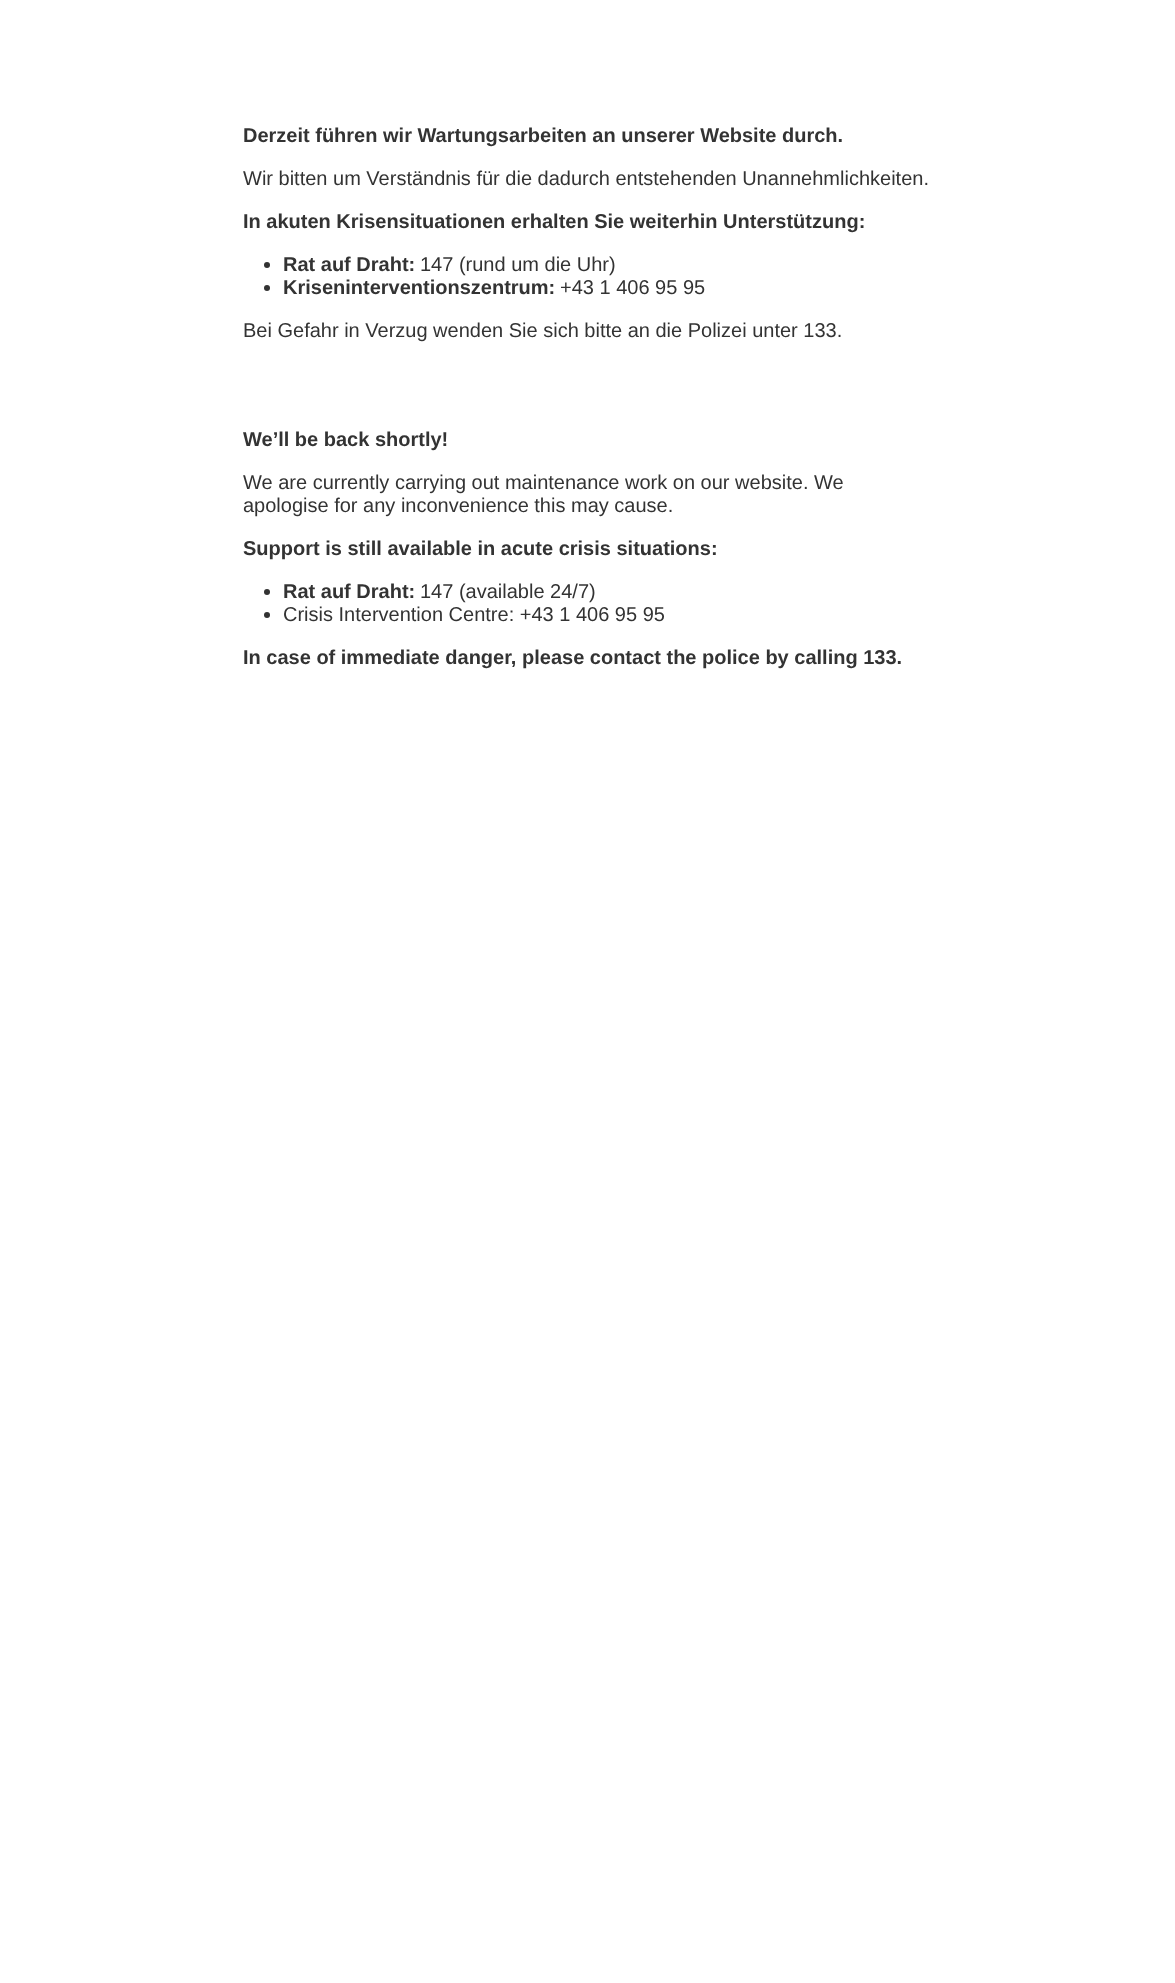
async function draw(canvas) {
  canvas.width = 1175
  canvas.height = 1983
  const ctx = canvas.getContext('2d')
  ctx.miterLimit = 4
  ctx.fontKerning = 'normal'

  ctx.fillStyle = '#fff'
  ctx.fillRect(0, 0, 1175, 1983)
  ctx.font = 'bold 20px Liberation Sans'
  ctx.fillStyle = '#333'
  ctx.fillText('Derzeit führen wir Wartungsarbeiten an unserer Website durch.', 243, 142)
  ctx.font = '20px Liberation Sans'
  ctx.fillText('Wir bitten um Verständnis für die dadurch entstehenden Unannehmlichkeiten.', 243, 185)
  ctx.font = 'bold 20px Liberation Sans'
  ctx.fillText('In akuten Krisensituationen erhalten Sie weiterhin Unterstützung:', 243, 228)
  ctx.beginPath()
  ctx.arc(267, 265, 3, 0, 2 * Math.PI)
  ctx.fill()
  ctx.fillText('Rat auf Draht:', 283, 271)
  ctx.font = '20px Liberation Sans'
  ctx.fillText('147 (rund um die Uhr)', 420, 271)
  ctx.beginPath()
  ctx.arc(267, 288, 3, 0, 2 * Math.PI)
  ctx.fill()
  ctx.font = 'bold 20px Liberation Sans'
  ctx.fillText('Kriseninterventionszentrum:', 283, 294)
  ctx.font = '20px Liberation Sans'
  ctx.fillText('+43 1 406 95 95', 560, 294)
  ctx.fillText('Bei Gefahr in Verzug wenden Sie sich bitte an die Polizei unter 133.', 243, 337)
  ctx.font = 'bold 20px Liberation Sans'
  ctx.fillText('We’ll be back shortly!', 243, 446)
  ctx.font = '20px Liberation Sans'
  ctx.fillText('We are currently carrying out maintenance work on our website. We', 243, 489)
  ctx.fillText('apologise for any inconvenience this may cause.', 243, 512)
  ctx.font = 'bold 20px Liberation Sans'
  ctx.fillText('Support is still available in acute crisis situations:', 243, 555)
  ctx.beginPath()
  ctx.arc(267, 592, 3, 0, 2 * Math.PI)
  ctx.fill()
  ctx.fillText('Rat auf Draht:', 283, 598)
  ctx.font = '20px Liberation Sans'
  ctx.fillText('147 (available 24/7)', 420, 598)
  ctx.beginPath()
  ctx.arc(267, 615, 3, 0, 2 * Math.PI)
  ctx.fill()
  ctx.fillText('Crisis Intervention Centre: +43 1 406 95 95', 283, 621)
  ctx.font = 'bold 20px Liberation Sans'
  ctx.fillText('In case of immediate danger, please contact the police by calling 133.', 243, 664)
}

draw(document.querySelector('canvas'))
